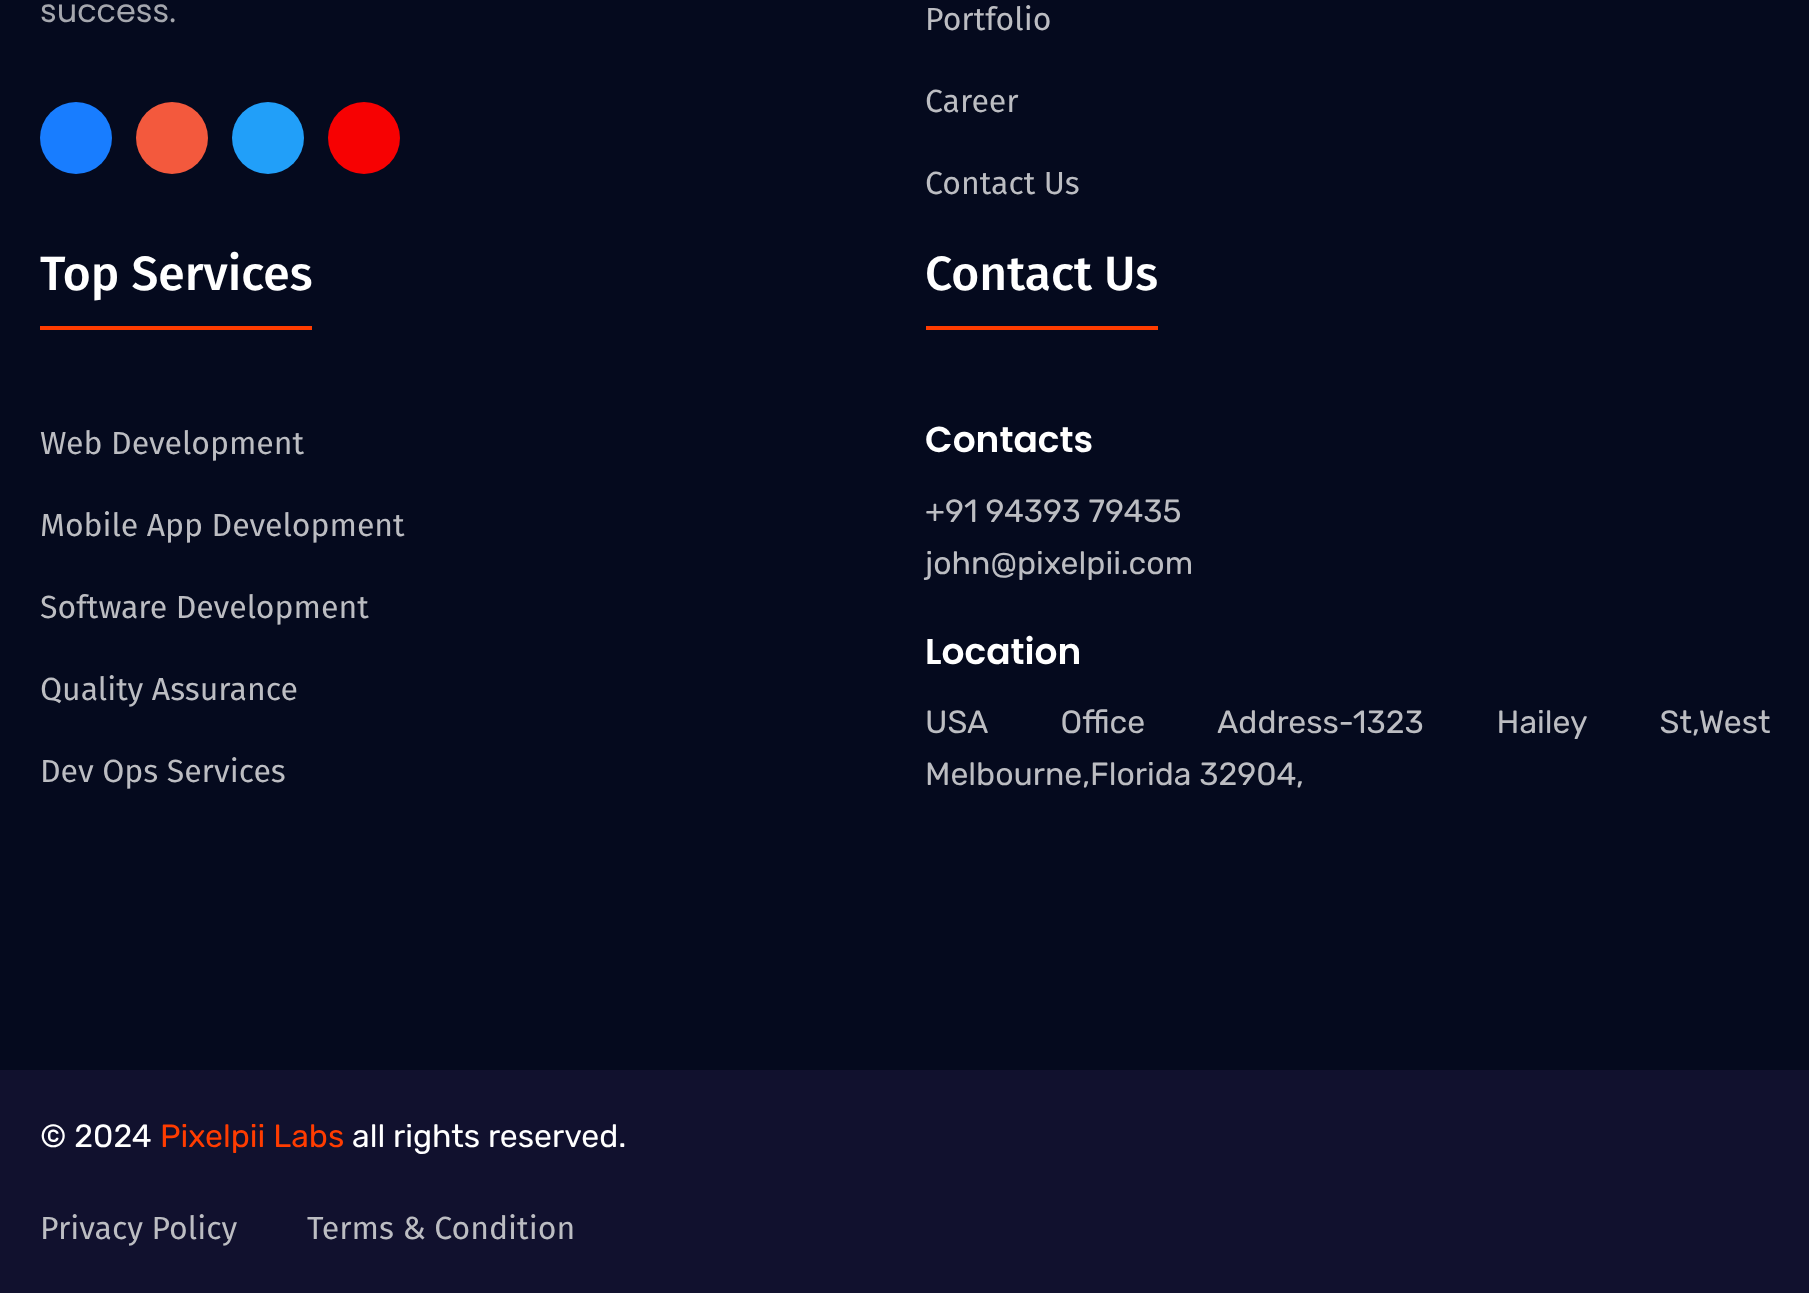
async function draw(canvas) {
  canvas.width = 1809
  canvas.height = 1293
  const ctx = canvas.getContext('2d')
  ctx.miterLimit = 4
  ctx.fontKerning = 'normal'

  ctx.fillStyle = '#050a1e'
  ctx.fillRect(0, 0, 1809, 1293)
  ctx.font = '32px Poppins'
  ctx.fillStyle = '#a5a7ae'
  ctx.fillText('success.', 40, 22)
  ctx.fillStyle = '#187dff'
  ctx.beginPath()
  ctx.arc(76, 138, 36, 0, 2 * Math.PI)
  ctx.fill()
  ctx.fillStyle = '#f3593d'
  ctx.beginPath()
  ctx.arc(172, 138, 36, 0, 2 * Math.PI)
  ctx.fill()
  ctx.fillStyle = '#219ff9'
  ctx.beginPath()
  ctx.arc(268, 138, 36, 0, 2 * Math.PI)
  ctx.fill()
  ctx.fillStyle = '#f70102'
  ctx.beginPath()
  ctx.arc(364, 138, 36, 0, 2 * Math.PI)
  ctx.fill()
  ctx.font = '32px Fira Sans'
  ctx.fillStyle = '#bcbdc2'
  ctx.fillText('Portfolio', 925, 30)
  ctx.fillText('Career', 925, 112)
  ctx.fillText('Contact Us', 925, 194)
  ctx.fillStyle = '#ff3c00'
  ctx.fillRect(40, 326, 272, 4)
  ctx.font = '500 48px Fira Sans'
  ctx.fillStyle = '#fff'
  ctx.fillText('Top Services', 40, 290)
  ctx.font = '32px Fira Sans'
  ctx.fillStyle = '#bcbdc2'
  ctx.fillText('Web Development', 40, 454)
  ctx.fillText('Mobile App Development', 40, 536)
  ctx.fillText('Software Development', 40, 618)
  ctx.fillText('Quality Assurance', 40, 700)
  ctx.fillText('Dev Ops Services', 40, 782)
  ctx.fillStyle = '#ff3c00'
  ctx.fillRect(926, 326, 232, 4)
  ctx.font = '500 48px Fira Sans'
  ctx.fillStyle = '#fff'
  ctx.fillText('Contact Us', 925, 290)
  ctx.font = '600 36px Poppins'
  ctx.fillText('Contacts', 925, 452)
  ctx.font = '32px Rubik'
  ctx.fillStyle = '#bcbdc2'
  ctx.fillText('+91 94393 79435', 925, 522)
  ctx.fillText('john@pixelpii.com', 925, 574)
  ctx.font = '600 36px Poppins'
  ctx.fillStyle = '#fff'
  ctx.fillText('Location', 925, 664)
  ctx.wordSpacing = '65px'
  ctx.font = '32px Rubik'
  ctx.fillStyle = '#bcbdc2'
  ctx.fillText('USA Office Address-1323 Hailey St,West', 925, 733)
  ctx.wordSpacing = '0px'
  ctx.fillText('Melbourne,Florida 32904,', 925, 785)
  ctx.fillStyle = '#11112e'
  ctx.fillRect(0, 1070, 1809, 223)
  ctx.fillStyle = '#fff'
  ctx.fillText('© 2024', 40, 1147)
  ctx.fillStyle = '#ff3c00'
  ctx.fillText('Pixelpii Labs', 160, 1147)
  ctx.fillStyle = '#fff'
  ctx.fillText('all rights reserved.', 352, 1147)
  ctx.font = '32px Fira Sans'
  ctx.fillStyle = '#bcbdc2'
  ctx.fillText('Privacy Policy', 40, 1239)
  ctx.fillText('Terms & Condition', 307, 1239)
}

draw(document.querySelector('canvas'))
